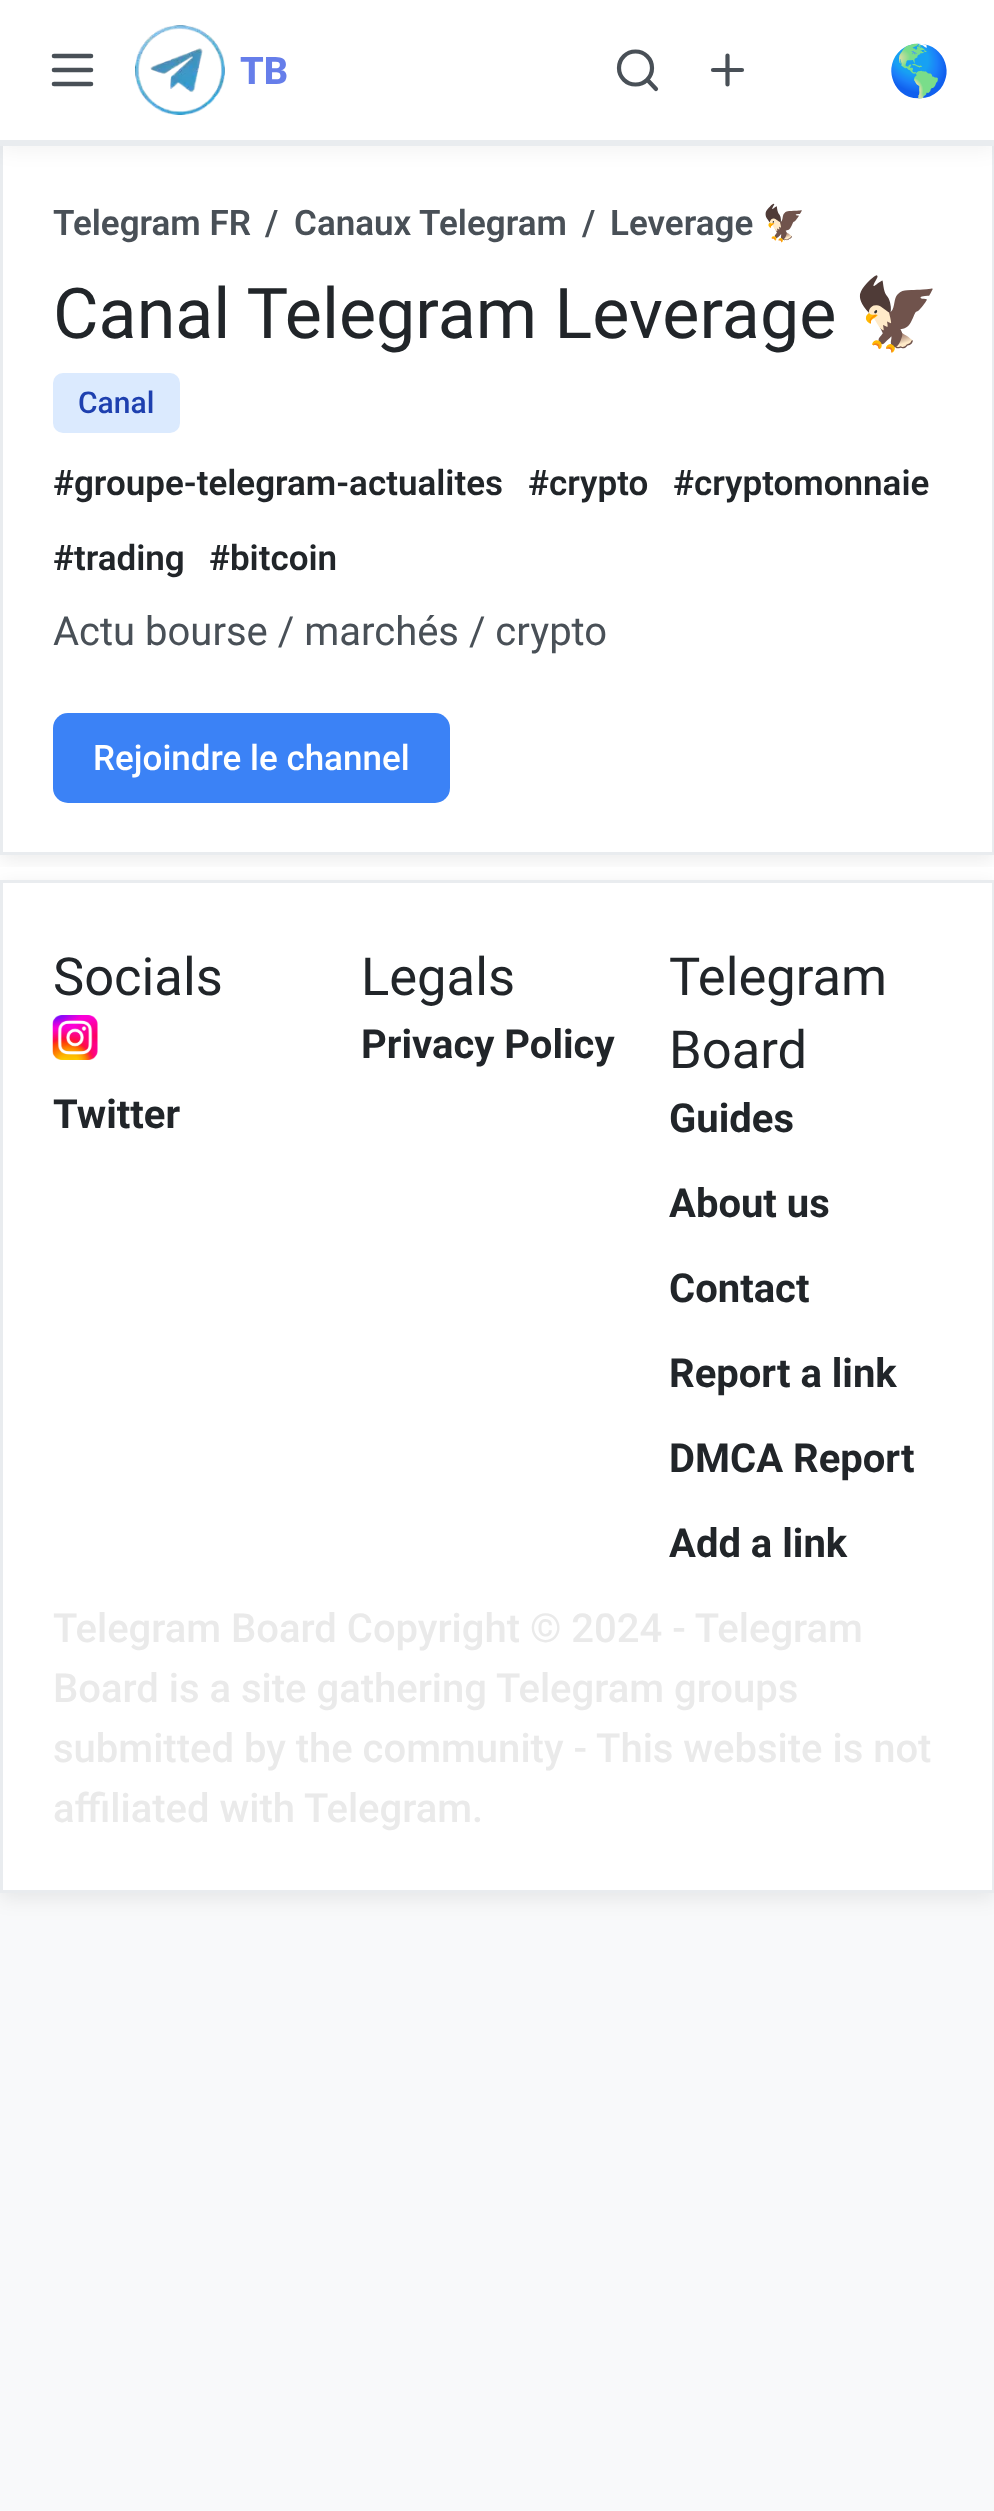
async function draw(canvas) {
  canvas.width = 994
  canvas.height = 2511
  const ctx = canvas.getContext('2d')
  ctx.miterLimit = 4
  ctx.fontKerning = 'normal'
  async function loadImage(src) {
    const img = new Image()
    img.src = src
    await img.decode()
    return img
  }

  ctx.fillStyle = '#f8f9fa'
  ctx.fillRect(0, 0, 994, 2511)
  ctx.fillStyle = '#fff'
  ctx.fillRect(0, 146, 994, 734)
  ctx.save()
  ctx.beginPath()
  ctx.rect(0, 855, 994, 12)
  ctx.clip()
  ctx.fillStyle = '#00000014'
  ctx.filter = 'blur(10px)'
  ctx.beginPath()
  ctx.rect(0, 145, 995, 715)
  ctx.fill()
  ctx.filter = 'none'
  ctx.restore()
  ctx.strokeStyle = '#e9ecef'
  ctx.lineWidth = 3
  ctx.strokeRect(1.5, 141.5, 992, 712)
  ctx.fillStyle = '#0000000d'
  ctx.filter = 'blur(10px)'
  ctx.beginPath()
  ctx.rect(0, 5, 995, 145)
  ctx.fill()
  ctx.filter = 'none'
  ctx.fillStyle = '#fff'
  ctx.fillRect(0, 0, 994, 140)
  ctx.fillStyle = '#e9ecef'
  ctx.fillRect(0, 140, 994, 6)
  ctx.beginPath()
  ctx.moveTo(54, 70)
  ctx.lineTo(91, 70)
  ctx.moveTo(54, 56)
  ctx.lineTo(91, 56)
  ctx.moveTo(54, 84)
  ctx.lineTo(91, 84)
  ctx.strokeStyle = '#495057'
  ctx.lineWidth = 4.6
  ctx.lineCap = 'round'
  ctx.lineJoin = 'round'
  ctx.stroke()
  ctx.drawImage(await loadImage('image0.png'), 135, 25, 90, 90)
  ctx.font = '800 38px Roboto'
  ctx.fillStyle = '#667eea'
  ctx.fillText('TB', 240, 84)
  ctx.beginPath()
  ctx.arc(635.5, 68, 16.5, 0, 2 * Math.PI)
  ctx.lineWidth = 4.2
  ctx.stroke()
  ctx.beginPath()
  ctx.moveTo(656, 89)
  ctx.lineTo(647.5, 80)
  ctx.stroke()
  ctx.beginPath()
  ctx.moveTo(713, 70)
  ctx.lineTo(742, 70)
  ctx.moveTo(727.5, 55.5)
  ctx.lineTo(727.5, 84.5)
  ctx.stroke()
  ctx.font = '50px Noto Color Emoji'
  ctx.fillStyle = '#020817'
  ctx.fillText('🌎', 888, 88)
  ctx.font = '600 35px Roboto'
  ctx.fillStyle = '#495057'
  ctx.fillText('Telegram FR', 53, 235)
  ctx.fillText('/', 265, 235)
  ctx.fillText('Canaux Telegram', 294, 235)
  ctx.fillText('/', 582, 235)
  ctx.fillText('Leverage', 610, 235)
  ctx.font = 'bold 35px Noto Color Emoji'
  ctx.fillText('🦅', 762, 235)
  ctx.font = '70px Roboto'
  ctx.fillStyle = '#212529'
  ctx.fillText('Canal Telegram Leverage', 53, 338)
  ctx.font = '70px Noto Color Emoji'
  ctx.fillText('🦅', 853, 338)
  ctx.fillStyle = '#dbeafe'
  ctx.beginPath()
  ctx.roundRect(53, 373, 127, 60, 10)
  ctx.fill()
  ctx.font = '500 30px Roboto'
  ctx.fillStyle = '#1e40af'
  ctx.fillText('Canal', 78, 413)
  ctx.font = '600 35px Roboto'
  ctx.fillStyle = '#212529'
  ctx.fillText('#groupe-telegram-actualites', 53, 495)
  ctx.fillText('#crypto', 528, 495)
  ctx.fillText('#cryptomonnaie', 673, 495)
  ctx.fillText('#trading', 53, 570)
  ctx.fillText('#bitcoin', 209, 570)
  ctx.font = '40px Roboto'
  ctx.fillStyle = '#495057'
  ctx.fillText('Actu bourse / marchés / crypto', 53, 645)
  ctx.fillStyle = '#3b82f6'
  ctx.beginPath()
  ctx.roundRect(53, 713, 397, 90, 15)
  ctx.fill()
  ctx.font = '500 35px Roboto'
  ctx.fillStyle = '#fff'
  ctx.fillText('Rejoindre le channel', 93, 770)
  ctx.fillStyle = '#00000014'
  ctx.filter = 'blur(10px)'
  ctx.beginPath()
  ctx.rect(0, 885, 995, 1013)
  ctx.fill()
  ctx.filter = 'none'
  ctx.fillStyle = '#fff'
  ctx.beginPath()
  ctx.rect(1.5, 881.5, 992, 1010)
  ctx.fill()
  ctx.strokeStyle = '#e9ecef'
  ctx.lineWidth = 3
  ctx.lineJoin = 'miter'
  ctx.stroke()
  ctx.font = '52.5px Roboto'
  ctx.fillStyle = '#212529'
  ctx.fillText('Socials', 53, 995)
  ctx.drawImage(await loadImage('image1.png'), 52, 1015, 46, 45)
  ctx.font = 'bold 40px Roboto'
  ctx.fillText('Twitter', 53, 1128)
  ctx.font = '52.5px Roboto'
  ctx.fillText('Legals', 361, 995)
  ctx.font = 'bold 40px Roboto'
  ctx.fillText('Privacy Policy', 361, 1058)
  ctx.font = '52.5px Roboto'
  ctx.fillText('Telegram', 669, 995)
  ctx.fillText('Board', 669, 1068)
  ctx.font = 'bold 40px Roboto'
  ctx.fillText('Guides', 669, 1132)
  ctx.fillText('About us', 669, 1217)
  ctx.fillText('Contact', 669, 1302)
  ctx.fillText('Report a link', 669, 1387)
  ctx.fillText('DMCA Report', 669, 1472)
  ctx.fillText('Add a link', 669, 1557)
  ctx.font = '500 40px Roboto'
  ctx.fillStyle = '#eaeaea'
  ctx.fillText('Telegram Board Copyright © 2024 - Telegram', 53, 1642)
  ctx.fillText('Board is a site gathering Telegram groups', 53, 1702)
  ctx.fillText('submitted by the community - This website is not', 53, 1762)
  ctx.fillText('affiliated with Telegram.', 53, 1822)
}

draw(document.querySelector('canvas'))
